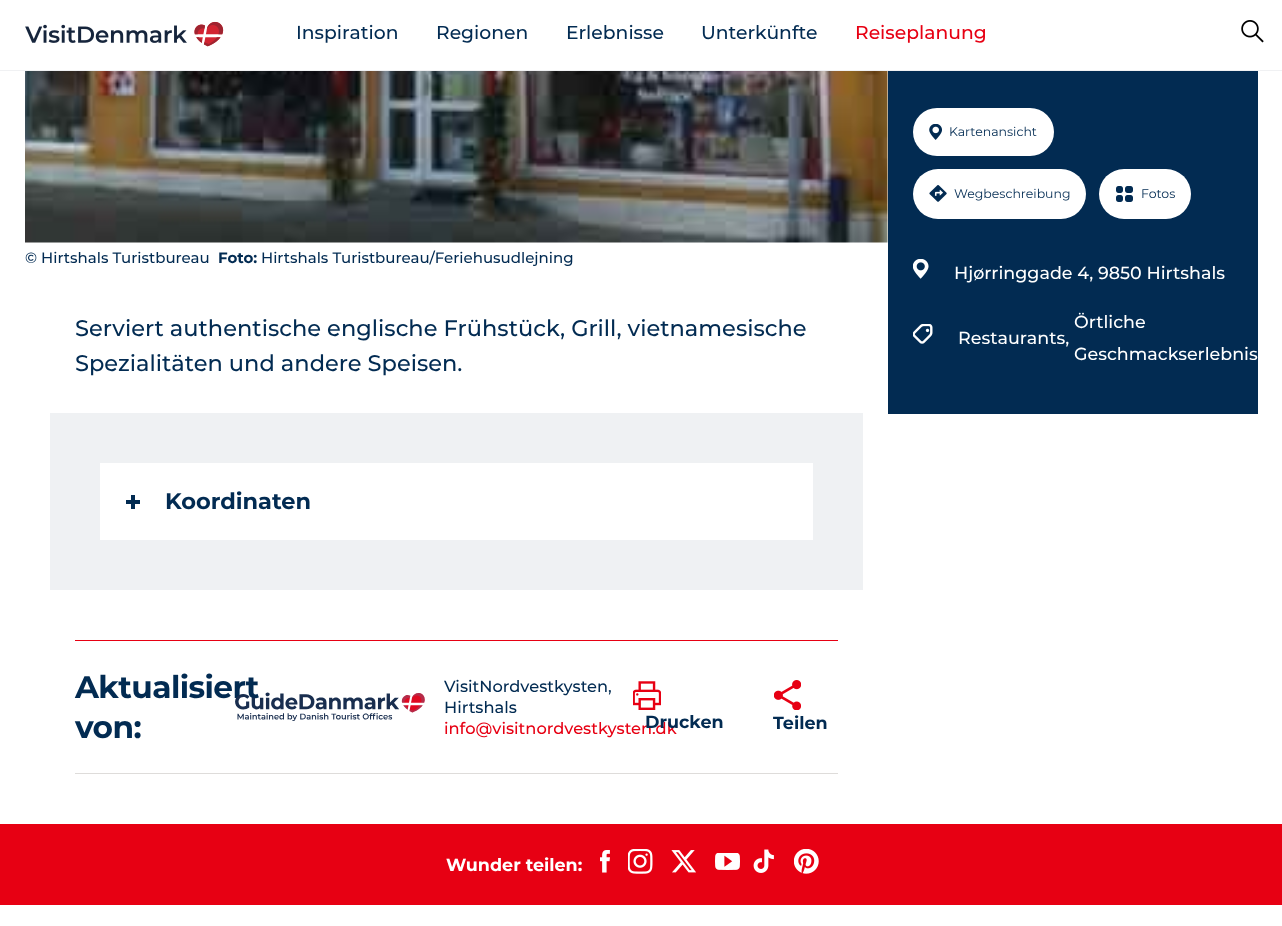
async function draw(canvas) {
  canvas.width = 1282
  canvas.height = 926
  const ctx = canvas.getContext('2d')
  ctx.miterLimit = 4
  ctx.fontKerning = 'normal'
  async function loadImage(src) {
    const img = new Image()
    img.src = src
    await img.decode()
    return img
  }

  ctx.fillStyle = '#fff'
  ctx.fillRect(0, 0, 1282, 926)
  ctx.fillStyle = '#f0f1f3'
  ctx.fillRect(0, 70, 1282, 1)
  ctx.drawImage(await loadImage('image0.png'), 25, 21, 199, 26)
  ctx.font = '500 18.75px Montserrat'
  ctx.fillStyle = '#022b52'
  ctx.fillText('Inspiration', 296, 39)
  ctx.fillText('Regionen', 436, 39)
  ctx.fillText('Erlebnisse', 566, 39)
  ctx.fillText('Unterkünfte', 701, 39)
  ctx.fillStyle = '#e70013'
  ctx.fillText('Reiseplanung', 855, 39)
  ctx.drawImage(await loadImage('image1.png'), 1241, 20, 23, 23)
  ctx.drawImage(await loadImage('image2.png'), 25, 71, 863, 172)
  ctx.font = '500 15px Montserrat'
  ctx.fillStyle = '#022b52'
  ctx.fillText('© Hirtshals Turistbureau', 25, 263)
  ctx.font = 'bold 15px Montserrat'
  ctx.fillText('Foto:', 218, 263)
  ctx.font = '500 15px Montserrat'
  ctx.fillText('Hirtshals Turistbureau/Feriehusudlejning', 261, 263)
  ctx.fillRect(888, 71, 370, 343)
  ctx.fillStyle = '#fff'
  ctx.beginPath()
  ctx.roundRect(913, 108, 141, 48, 24)
  ctx.fill()
  ctx.drawImage(await loadImage('image3.png'), 929, 124, 13, 16)
  ctx.font = '12.5px Montserrat'
  ctx.fillStyle = '#022b52'
  ctx.fillText('Kartenansicht', 949, 136)
  ctx.fillStyle = '#fff'
  ctx.beginPath()
  ctx.roundRect(913, 169, 173, 50, 25)
  ctx.fill()
  ctx.drawImage(await loadImage('image4.png'), 929, 185, 18, 17)
  ctx.fillStyle = '#022b52'
  ctx.fillText('Wegbeschreibung', 954, 198)
  ctx.fillStyle = '#fff'
  ctx.beginPath()
  ctx.roundRect(1099, 169, 92, 50, 25)
  ctx.fill()
  ctx.drawImage(await loadImage('image5.png'), 1116, 186, 17, 16)
  ctx.fillStyle = '#022b52'
  ctx.fillText('Fotos', 1141, 198)
  ctx.drawImage(await loadImage('image6.png'), 913, 259, 16, 20)
  ctx.font = '500 17.5px Montserrat'
  ctx.fillStyle = '#fff'
  ctx.fillText('Hjørringgade 4, 9850 Hirtshals', 954, 279)
  ctx.drawImage(await loadImage('image7.png'), 913, 324, 20, 20)
  ctx.fillText('Restaurants,', 958, 344)
  ctx.fillText('Örtliche', 1074, 328)
  ctx.fillText('Geschmackserlebnis', 1074, 360)
  ctx.font = '500 22.5px Montserrat'
  ctx.fillStyle = '#022b52'
  ctx.fillText('Serviert authentische englische Frühstück, Grill, vietnamesische', 75, 336)
  ctx.fillText('Spezialitäten und andere Speisen.', 75, 371)
  ctx.fillStyle = '#eff1f3'
  ctx.fillRect(50, 413, 813, 177)
  ctx.fillStyle = '#fff'
  ctx.fillRect(100, 463, 713, 77)
  ctx.fillStyle = '#022b52'
  ctx.fillRect(126, 500, 14, 4)
  ctx.fillRect(131, 495, 4, 14)
  ctx.font = 'bold 22.5px Montserrat'
  ctx.fillText('Koordinaten', 165, 509)
  ctx.fillStyle = '#e70013'
  ctx.fillRect(75, 640, 763, 1)
  ctx.fillStyle = '#dedcda'
  ctx.fillRect(75, 773, 763, 1)
  ctx.letterSpacing = '-0.6px'
  ctx.font = 'bold 31.25px Montserrat'
  ctx.fillStyle = '#022b52'
  ctx.fillText('Aktualisiert', 75, 698)
  ctx.fillText('von:', 75, 738)
  ctx.drawImage(await loadImage('image8.png'), 235, 692, 190, 29)
  ctx.letterSpacing = '0px'
  ctx.font = '500 16.25px Montserrat'
  ctx.fillText('VisitNordvestkysten,', 444, 692)
  ctx.fillText('Hirtshals', 444, 713)
  ctx.fillStyle = '#e70013'
  ctx.fillText('info@visitnordvestkysten.dk', 444, 734)
  ctx.drawImage(await loadImage('image9.png'), 633, 681, 28, 29)
  ctx.font = 'bold 17.5px Montserrat'
  ctx.fillStyle = '#022b52'
  ctx.fillText('Drucken', 645, 728)
  ctx.drawImage(await loadImage('image10.png'), 774, 680, 27, 30)
  ctx.fillText('Teilen', 773, 729)
  ctx.fillStyle = '#e70013'
  ctx.fillRect(0, 824, 1282, 81)
  ctx.fillStyle = '#fff'
  ctx.fillText('Wunder teilen:', 446, 871)
  ctx.drawImage(await loadImage('image11.png'), 600, 850, 10, 23)
  ctx.drawImage(await loadImage('image12.png'), 628, 849, 25, 25)
  ctx.drawImage(await loadImage('image13.png'), 671, 850, 25, 23)
  ctx.drawImage(await loadImage('image14.png'), 715, 853, 25, 17)
  ctx.drawImage(await loadImage('image15.png'), 753, 849, 21, 24)
  ctx.drawImage(await loadImage('image16.png'), 794, 849, 25, 25)
}

draw(document.querySelector('canvas'))
